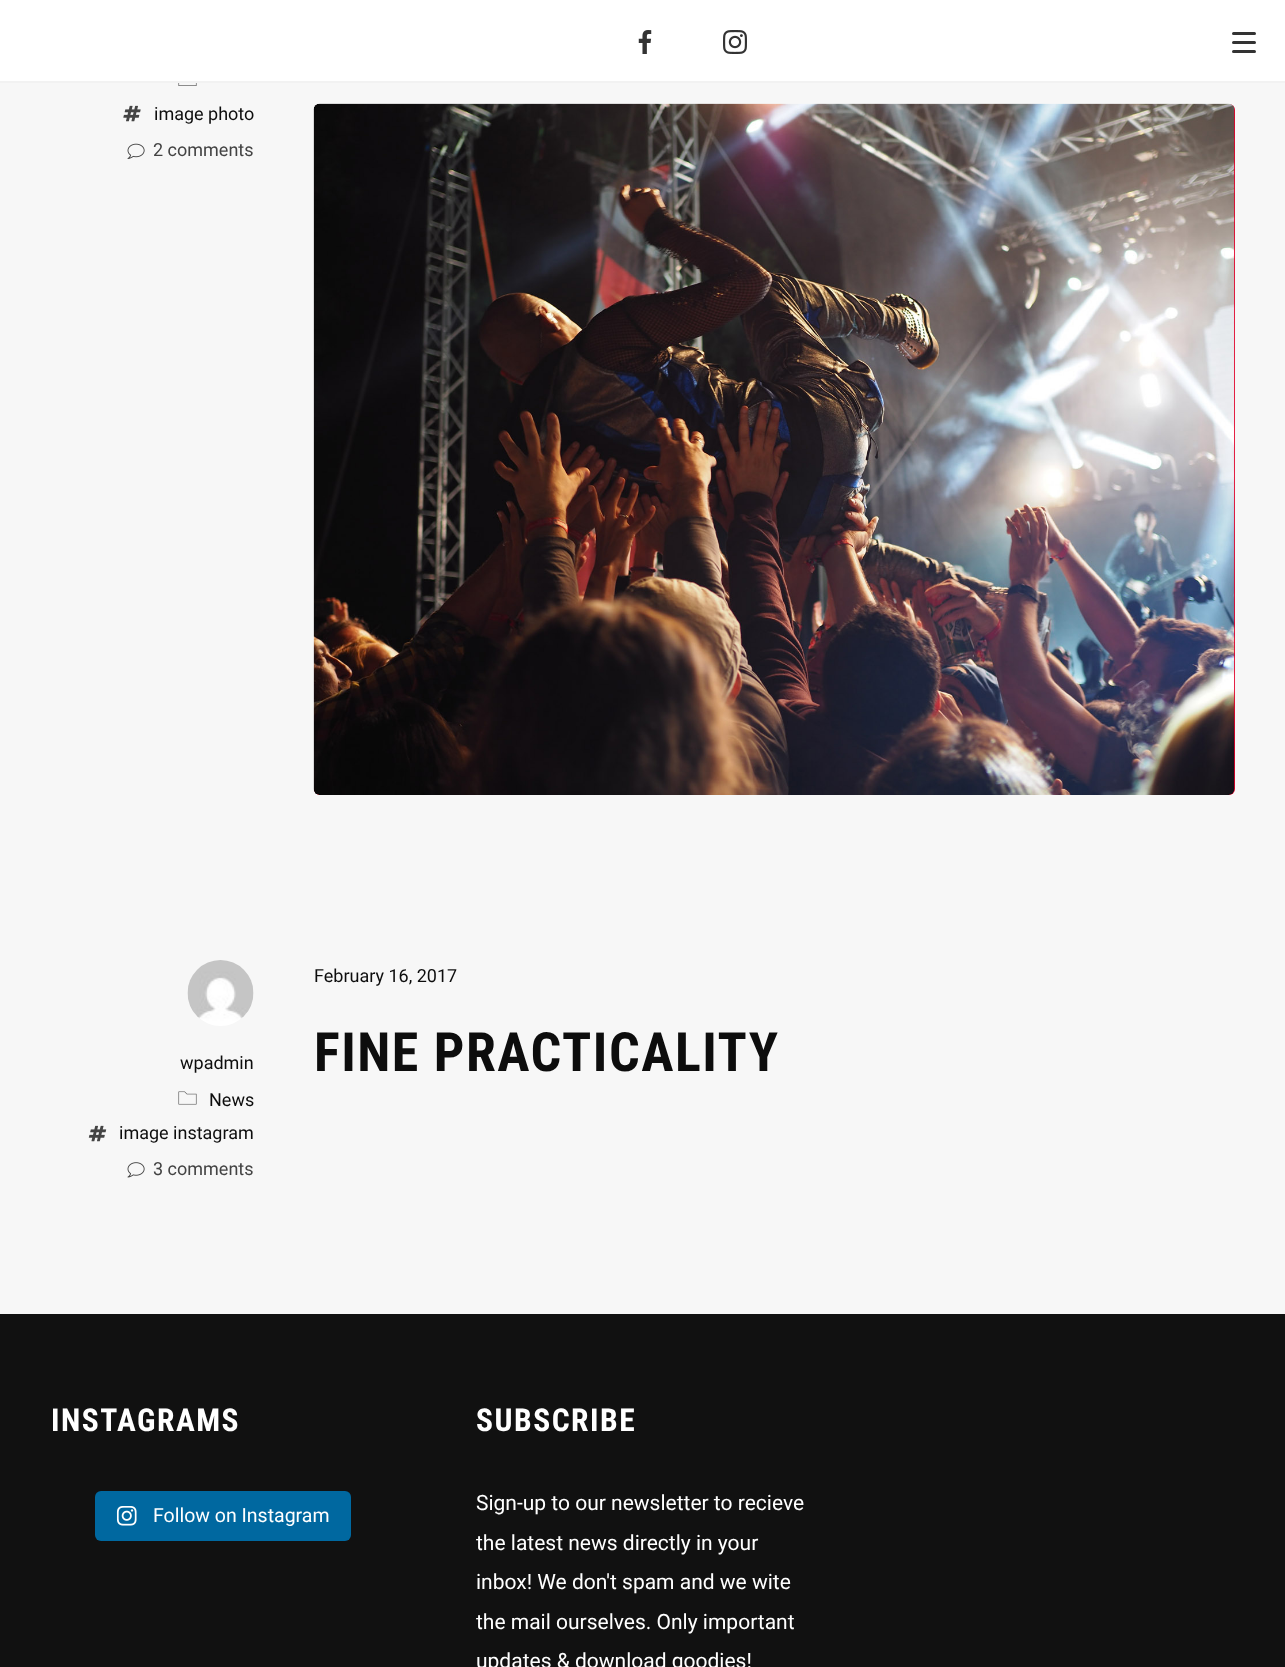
async function draw(canvas) {
  canvas.width = 1285
  canvas.height = 1667
  const ctx = canvas.getContext('2d')
  ctx.miterLimit = 4
  ctx.fontKerning = 'normal'
  async function loadImage(src) {
    const img = new Image()
    img.src = src
    await img.decode()
    return img
  }

  ctx.fillStyle = '#111'
  ctx.fillRect(0, 0, 1285, 1667)
  ctx.fillStyle = '#fff'
  ctx.fillRect(0, 0, 1285, 81)
  ctx.fillStyle = '#f2f2f2'
  ctx.fillRect(0, 81, 1285, 2)
  ctx.drawImage(await loadImage('image0.png'), 638, 30, 14, 24)
  ctx.drawImage(await loadImage('image1.png'), 723, 30, 24, 24)
  ctx.fillStyle = '#333'
  ctx.beginPath()
  ctx.roundRect(1232, 32, 24, 3, 1.5)
  ctx.fill()
  ctx.beginPath()
  ctx.roundRect(1232, 41, 24, 3, 1.5)
  ctx.fill()
  ctx.beginPath()
  ctx.roundRect(1232, 50, 24, 3, 1.5)
  ctx.fill()
  ctx.fillStyle = '#f7f7f7'
  ctx.fillRect(0, 83, 1285, 1231)
  ctx.drawImage(await loadImage('image2.png'), 178, 83, 19, 3)
  ctx.drawImage(await loadImage('image3.png'), 123, 105, 18, 17)
  ctx.font = '18px Roboto'
  ctx.fillStyle = '#0d0d0d'
  ctx.fillText('image photo', 154, 120)
  ctx.drawImage(await loadImage('image4.png'), 127, 143, 18, 16)
  ctx.fillStyle = '#434343'
  ctx.fillText('2 comments', 153, 156)
  ctx.fillStyle = '#e2022b'
  ctx.beginPath()
  ctx.roundRect(314, 104, 921, 691, 6)
  ctx.fill()
  ctx.drawImage(await loadImage('image5.png'), 313, 103, 922, 692)
  ctx.fillStyle = '#0d0d0d'
  ctx.fillText('February 16, 2017', 314, 982)
  ctx.letterSpacing = '1.5px'
  ctx.font = 'bold 54px Roboto Condensed'
  ctx.fillText('FINE PRACTICALITY', 314, 1071)
  ctx.drawImage(await loadImage('image6.png'), 187, 960, 67, 66)
  ctx.letterSpacing = '0px'
  ctx.font = '18px Roboto'
  ctx.fillText('wpadmin', 180, 1069)
  ctx.drawImage(await loadImage('image7.png'), 178, 1091, 19, 14)
  ctx.fillText('News', 209, 1106)
  ctx.drawImage(await loadImage('image8.png'), 88, 1125, 19, 17)
  ctx.fillText('image instagram', 119, 1139)
  ctx.drawImage(await loadImage('image9.png'), 127, 1162, 18, 16)
  ctx.fillStyle = '#434343'
  ctx.fillText('3 comments', 153, 1175)
  ctx.letterSpacing = '1.5px'
  ctx.font = 'bold 31.5px Roboto Condensed'
  ctx.fillStyle = '#fff'
  ctx.fillText('INSTAGRAMS', 51, 1431)
  ctx.fillStyle = '#0068a0'
  ctx.beginPath()
  ctx.roundRect(95, 1491, 256, 50, 6)
  ctx.fill()
  ctx.drawImage(await loadImage('image10.png'), 116, 1506, 21, 20)
  ctx.letterSpacing = '0px'
  ctx.font = '19.5px Roboto'
  ctx.fillStyle = '#fff'
  ctx.fillText('Follow on Instagram', 153, 1522)
  ctx.letterSpacing = '1.5px'
  ctx.font = 'bold 31.5px Roboto Condensed'
  ctx.fillText('SUBSCRIBE', 476, 1431)
  ctx.letterSpacing = '0px'
  ctx.font = '21px Roboto'
  ctx.fillText('Sign-up to our newsletter to recieve', 476, 1510)
  ctx.fillText('the latest news directly in your', 476, 1550)
  ctx.fillText('inbox! We don\'t spam and we wite', 476, 1589)
  ctx.fillText('the mail ourselves. Only important', 476, 1629)
  ctx.fillText('updates & download goodies!', 476, 1668)
}

draw(document.querySelector('canvas'))
